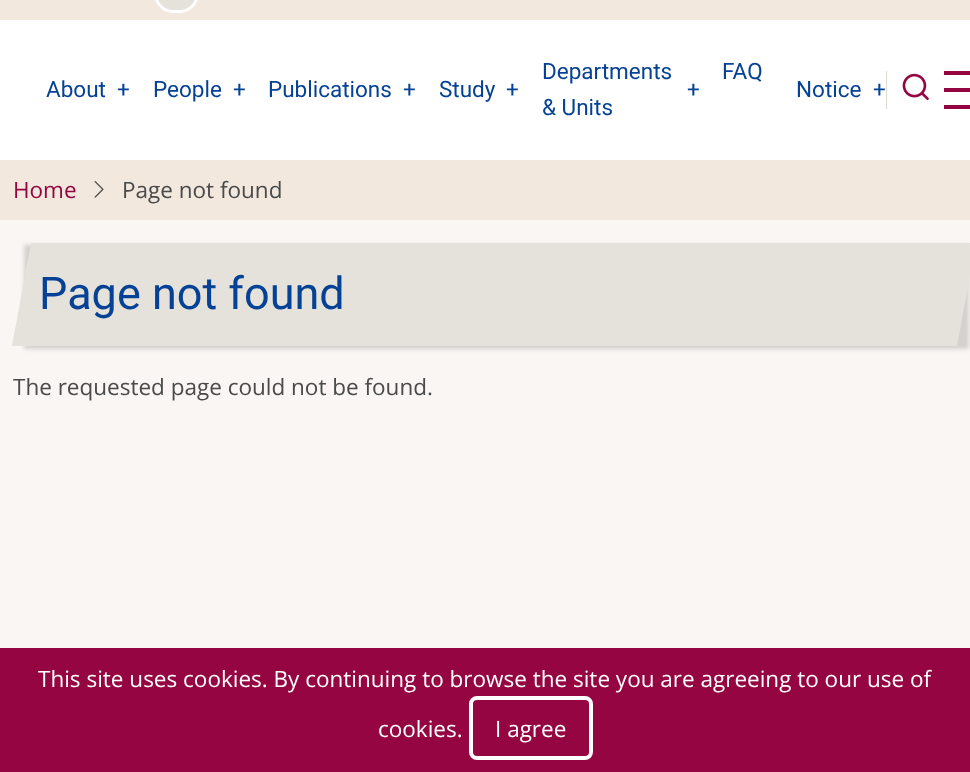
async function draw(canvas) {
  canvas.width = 970
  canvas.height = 772
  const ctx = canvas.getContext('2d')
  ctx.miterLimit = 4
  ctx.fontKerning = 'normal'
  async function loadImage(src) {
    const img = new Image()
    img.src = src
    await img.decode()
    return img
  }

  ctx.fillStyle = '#f9f6f3'
  ctx.fillRect(0, 0, 970, 772)
  ctx.fillStyle = '#f2e8dd'
  ctx.fillRect(0, 0, 970, 20)
  ctx.fillStyle = '#e5e2dc'
  ctx.beginPath()
  ctx.roundRect(155.5, -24.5, 42, 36, 21)
  ctx.fill()
  ctx.strokeStyle = '#fff'
  ctx.lineWidth = 3
  ctx.stroke()
  ctx.fillStyle = '#fff'
  ctx.fillRect(0, 20, 970, 140)
  ctx.font = '22.5px Roboto'
  ctx.fillStyle = '#054194'
  ctx.fillText('About', 46, 97)
  ctx.fillText('+', 117, 97)
  ctx.fillText('People', 153, 97)
  ctx.fillText('+', 233, 97)
  ctx.fillText('Publications', 268, 97)
  ctx.fillText('+', 403, 97)
  ctx.fillText('Study', 439, 97)
  ctx.fillText('+', 506, 97)
  ctx.fillText('Departments', 542, 79)
  ctx.fillText('& Units', 542, 115)
  ctx.fillText('+', 687, 97)
  ctx.fillText('FAQ', 722, 79)
  ctx.fillText('Notice', 796, 97)
  ctx.fillText('+', 873, 97)
  ctx.fillStyle = '#dbdbd3'
  ctx.fillRect(886, 71, 1, 38)
  ctx.drawImage(await loadImage('image0.png'), 902, 73, 27, 27)
  ctx.fillStyle = '#940541'
  ctx.fillRect(944, 71, 26, 4)
  ctx.fillRect(944, 88, 26, 4)
  ctx.fillRect(944, 105, 26, 4)
  ctx.fillStyle = '#f2e8dd'
  ctx.fillRect(0, 160, 970, 60)
  ctx.font = '22.5px Open Sans'
  ctx.fillStyle = '#940541'
  ctx.fillText('Home', 13, 198)
  ctx.drawImage(await loadImage('image1.png'), 94, 181, 10, 17)
  ctx.fillStyle = '#4a4a4a'
  ctx.fillText('Page not found', 122, 198)
  ctx.fillStyle = '#00000026'
  ctx.filter = 'blur(2px)'
  ctx.beginPath()
  ctx.rect(24, 245, 945, 104)
  ctx.fill()
  ctx.filter = 'none'
  ctx.fillStyle = '#e5e2dc'
  ctx.beginPath()
  ctx.moveTo(31, 243)
  ctx.lineTo(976, 243)
  ctx.lineTo(957, 346)
  ctx.lineTo(12, 346)
  ctx.closePath()
  ctx.fill()
  ctx.font = '45px Roboto'
  ctx.fillStyle = '#054194'
  ctx.fillText('Page not found', 39, 309)
  ctx.font = '22.5px Open Sans'
  ctx.fillStyle = '#4a4a4a'
  ctx.fillText('The requested page could not be found.', 13, 395)
  ctx.fillStyle = '#940541'
  ctx.fillRect(0, 648, 970, 124)
  ctx.fillStyle = '#fff'
  ctx.fillText('This site uses cookies. By continuing to browse the site you are agreeing to our use of', 38, 687)
  ctx.fillText('cookies.', 378, 737)
  ctx.beginPath()
  ctx.roundRect(471, 698, 120, 60, 6)
  ctx.lineWidth = 4
  ctx.stroke()
  ctx.fillText('I agree', 495, 737)
}

draw(document.querySelector('canvas'))
